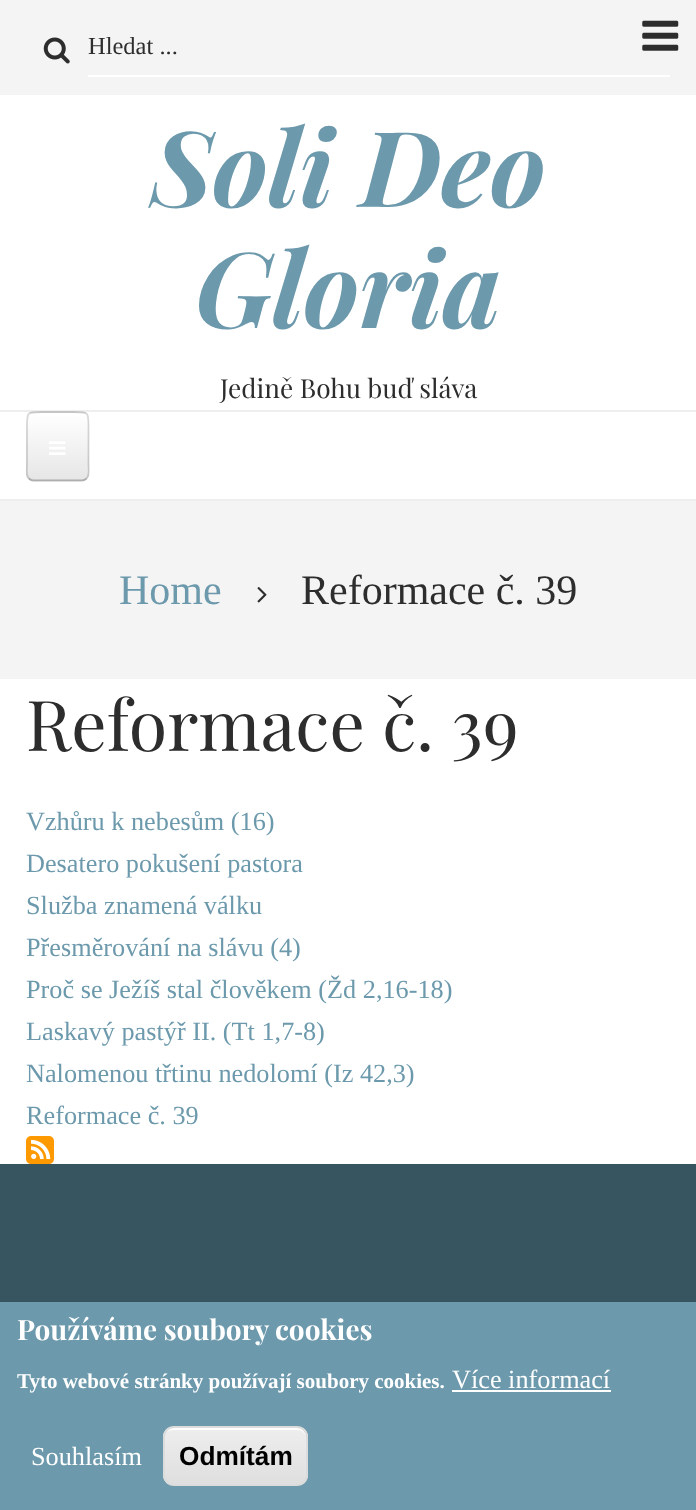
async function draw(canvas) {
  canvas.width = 696
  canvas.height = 1510
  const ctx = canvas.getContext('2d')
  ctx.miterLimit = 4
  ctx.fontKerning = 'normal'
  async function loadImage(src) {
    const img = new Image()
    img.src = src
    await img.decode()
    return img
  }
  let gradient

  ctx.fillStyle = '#fff'
  ctx.fillRect(0, 0, 696, 1510)
  ctx.fillStyle = '#f4f4f4'
  ctx.fillRect(0, 0, 696, 95)
  ctx.drawImage(await loadImage('image0.png'), 43, 37, 27, 27)
  ctx.fillStyle = '#fff'
  ctx.fillRect(88, 75, 582, 2)
  ctx.font = '24.5px Liberation Serif'
  ctx.fillStyle = '#2d2d2d'
  ctx.fillText('Hledat ...', 88, 54)
  ctx.drawImage(await loadImage('image1.png'), 642, 20, 37, 31)
  ctx.font = 'italic bold 105px Playfair Display'
  ctx.fillStyle = '#6c99ac'
  ctx.fillText('Soli Deo', 151, 207)
  ctx.fillText('Gloria', 195, 328)
  ctx.font = '26.25px Playfair Display'
  ctx.fillStyle = '#2d2d2d'
  ctx.fillText('Jedině Bohu buď sláva', 220, 398)
  ctx.fillStyle = '#eee'
  ctx.fillRect(0, 410, 696, 2)
  ctx.fillRect(0, 499, 696, 2)
  ctx.fillStyle = '#e8e8e8'
  ctx.beginPath()
  ctx.roundRect(26, 411, 63, 70, 7)
  ctx.fill()
  ctx.save()
  ctx.beginPath()
  ctx.roundRect(26, 411, 63, 70, 7)
  ctx.clip()
  gradient = ctx.createLinearGradient(58, 413, 58, 480)
  gradient.addColorStop(0, '#fff')
  gradient.addColorStop(1, '#e6e6e6')
  ctx.fillStyle = gradient
  ctx.fillRect(26, 413, 63, 67)
  ctx.restore()
  ctx.fillStyle = '#fff'
  ctx.beginPath()
  ctx.moveTo(33, 415)
  ctx.lineTo(82, 415)
  ctx.bezierCurveTo(85, 415, 88, 417, 88, 420)
  ctx.bezierCurveTo(88, 411, 82, 413, 75, 413)
  ctx.lineTo(41, 413)
  ctx.bezierCurveTo(34, 413, 28, 411, 28, 420)
  ctx.bezierCurveTo(28, 417, 30, 415, 33, 415)
  ctx.closePath()
  ctx.fill()
  ctx.beginPath()
  ctx.moveTo(86.5, 478.5)
  ctx.bezierCurveTo(85.5, 479.5, 84, 480.5, 82, 480.5)
  ctx.lineTo(33, 480.5)
  ctx.bezierCurveTo(31.5, 480.5, 30, 479.5, 29, 478.5)
  ctx.strokeStyle = '#00000040'
  ctx.lineWidth = 1.8
  ctx.stroke()
  ctx.beginPath()
  ctx.moveTo(29, 478.5)
  ctx.bezierCurveTo(25.5, 475.5, 27, 468, 27, 465)
  ctx.lineTo(27, 427.5)
  ctx.bezierCurveTo(27, 412.5, 26.5, 412, 41.5, 412)
  ctx.lineTo(74, 412)
  ctx.bezierCurveTo(89, 412, 88.5, 412.5, 88.5, 427.5)
  ctx.lineTo(88.5, 465)
  ctx.bezierCurveTo(88.5, 468, 90, 475.5, 86.5, 478.5)
  ctx.strokeStyle = '#00000026'
  ctx.stroke()
  ctx.drawImage(await loadImage('image2.png'), 49, 441, 17, 14)
  ctx.fillStyle = '#f4f4f4'
  ctx.fillRect(0, 501, 696, 178)
  ctx.font = '42px Liberation Serif'
  ctx.fillStyle = '#6c99ac'
  ctx.fillText('Home', 119, 604)
  ctx.drawImage(await loadImage('image3.png'), 257, 587, 10, 16)
  ctx.fillStyle = '#2d2d2d'
  ctx.fillText('Reformace č. 39', 301, 604)
  ctx.font = '70px Playfair Display'
  ctx.fillText('Reformace č. 39', 26, 751)
  ctx.font = '26.25px Liberation Serif'
  ctx.fillStyle = '#6c99ac'
  ctx.fillText('Vzhůru k nebesům (16)', 26, 830)
  ctx.fillText('Desatero pokušení pastora', 26, 872)
  ctx.fillText('Služba znamená válku', 26, 914)
  ctx.fillText('Přesměrování na slávu (4)', 26, 956)
  ctx.fillText('Proč se Ježíš stal člověkem (Žd 2,16-18)', 26, 998)
  ctx.fillText('Laskavý pastýř II. (Tt 1,7-8)', 26, 1040)
  ctx.fillText('Nalomenou třtinu nedolomí (Iz 42,3)', 26, 1082)
  ctx.fillText('Reformace č. 39', 26, 1124)
  ctx.drawImage(await loadImage('image4.png'), 26, 1136, 28, 28)
  ctx.fillStyle = '#375561'
  ctx.fillRect(0, 1164, 696, 138)
  ctx.fillStyle = '#6c99ac'
  ctx.fillRect(0, 1302, 696, 208)
  ctx.font = 'bold 28px Playfair Display'
  ctx.fillStyle = '#fff'
  ctx.fillText('Používáme soubory cookies', 17, 1340)
  ctx.font = 'bold 21px Liberation Serif'
  ctx.fillText('Tyto webové stránky používají soubory cookies.', 17, 1388)
  ctx.font = '26.25px Liberation Serif'
  ctx.fillText('Více informací', 452, 1388)
  ctx.fillRect(452, 1390, 159, 2)
  ctx.fillText('Souhlasím', 31, 1465)
  ctx.save()
  ctx.beginPath()
  ctx.roundRect(163, 1426, 145, 60, 11)
  ctx.clip()
  gradient = ctx.createLinearGradient(235, 1428, 235, 1484)
  gradient.addColorStop(0.05, '#ededed')
  gradient.addColorStop(1, '#dfdfdf')
  ctx.fillStyle = gradient
  ctx.fillRect(163, 1428, 145, 56)
  ctx.restore()
  ctx.beginPath()
  ctx.moveTo(173, 1430)
  ctx.lineTo(298, 1430)
  ctx.bezierCurveTo(302, 1430, 306, 1434, 306, 1438)
  ctx.lineTo(306, 1437)
  ctx.bezierCurveTo(306, 1432, 302, 1428, 297, 1428)
  ctx.lineTo(174, 1428)
  ctx.bezierCurveTo(170, 1428, 167, 1430, 166, 1433)
  ctx.bezierCurveTo(167, 1431, 170, 1430, 173, 1430)
  ctx.closePath()
  ctx.fill()
  ctx.beginPath()
  ctx.roundRect(164, 1427, 143, 58, 10)
  ctx.strokeStyle = '#dcdcdc'
  ctx.lineWidth = 2
  ctx.stroke()
  ctx.font = 'bold 26.25px Liberation Sans'
  ctx.fillStyle = '#000'
  ctx.fillText('Odmítám', 179, 1465)
}

draw(document.querySelector('canvas'))
